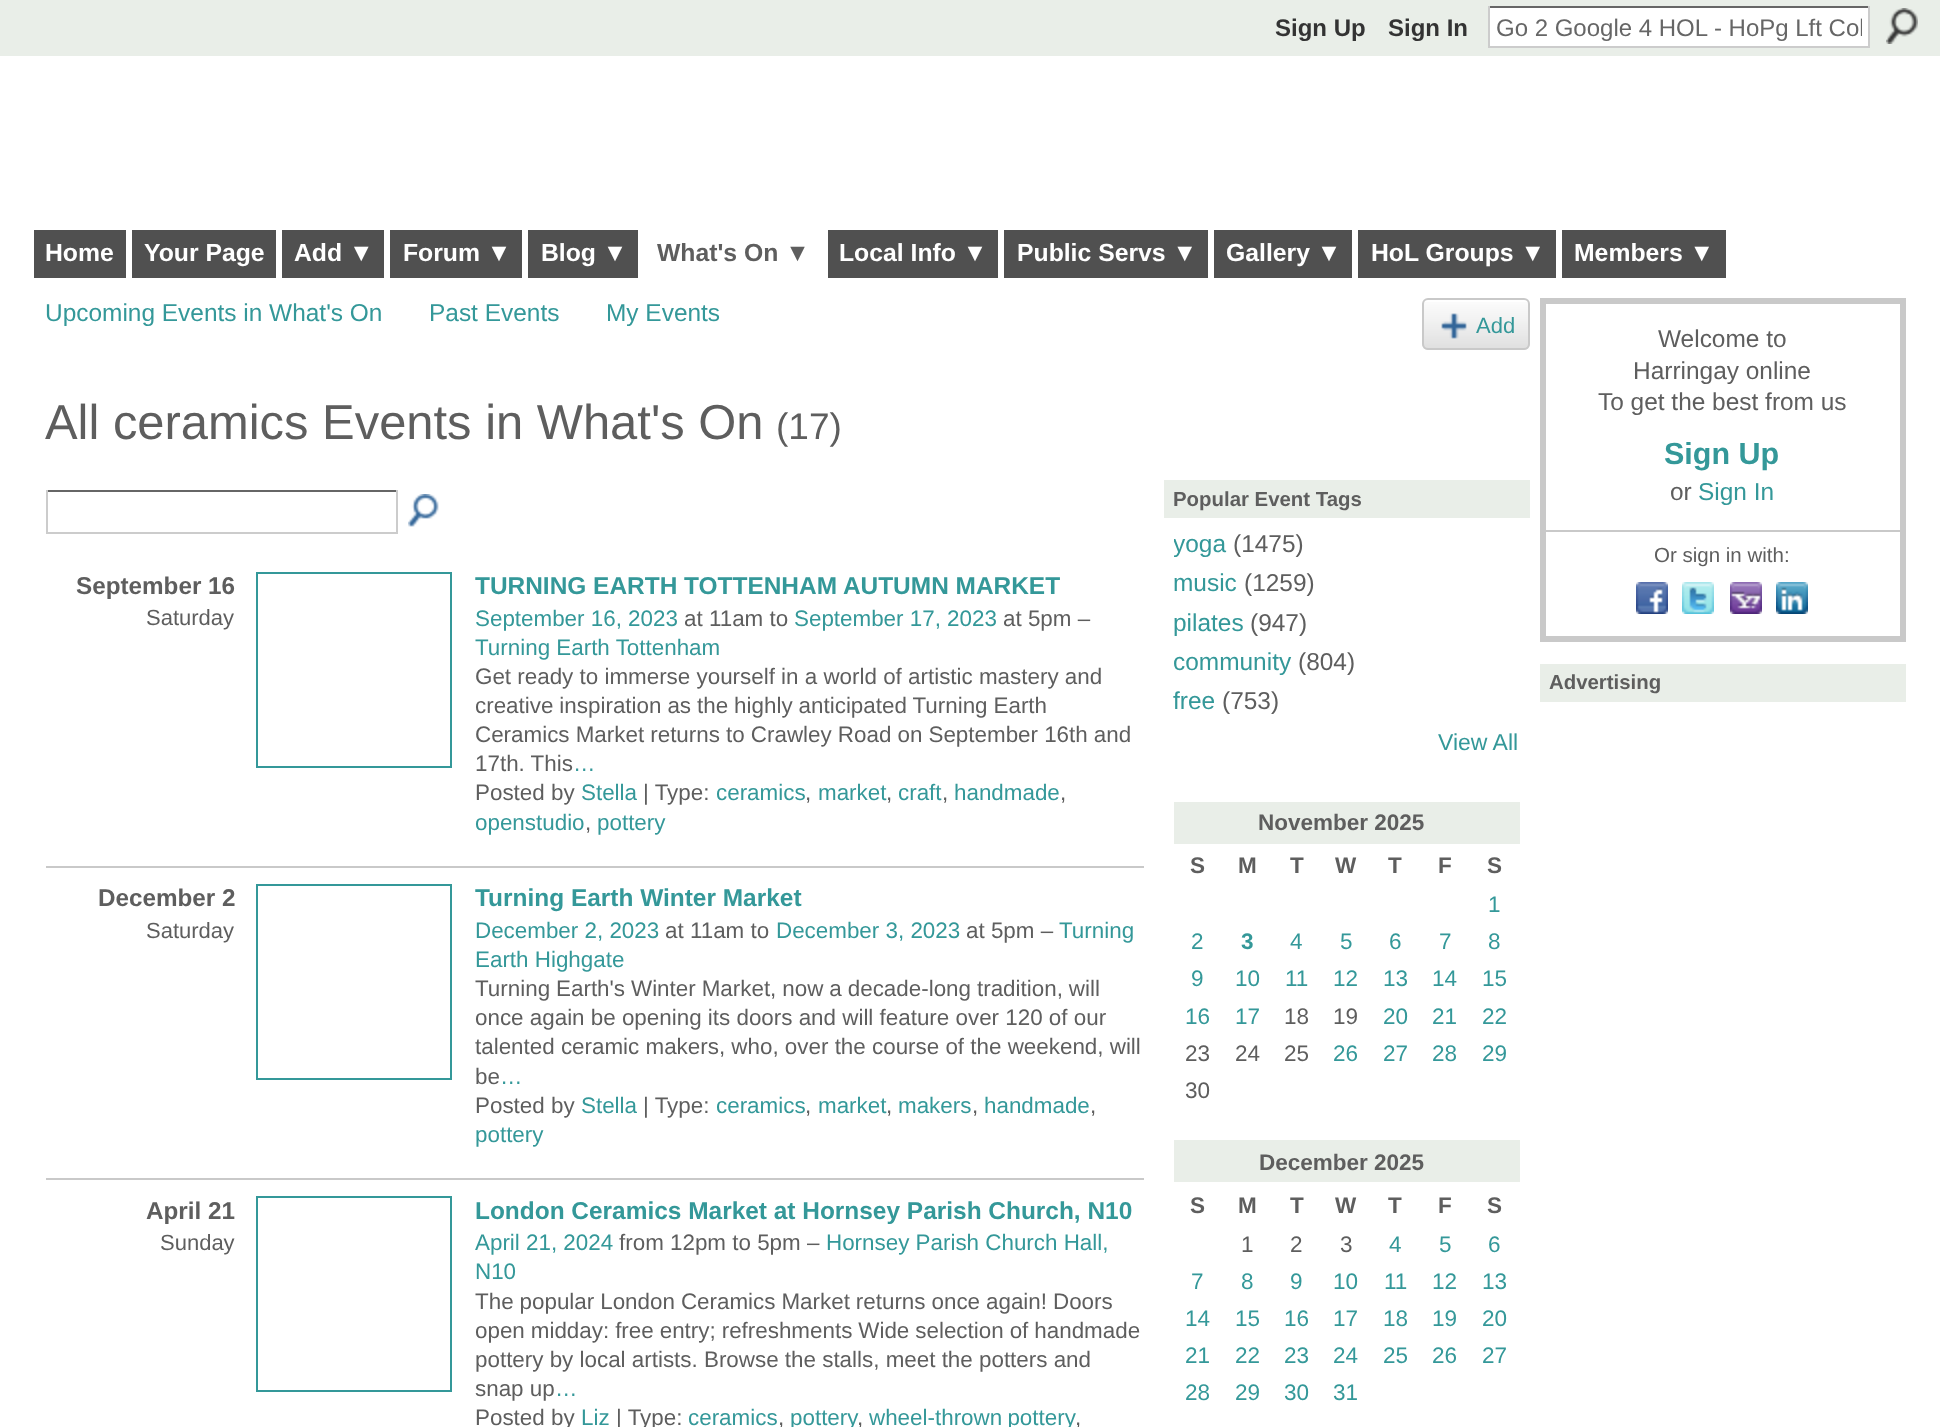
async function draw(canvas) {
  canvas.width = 1940
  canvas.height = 1427
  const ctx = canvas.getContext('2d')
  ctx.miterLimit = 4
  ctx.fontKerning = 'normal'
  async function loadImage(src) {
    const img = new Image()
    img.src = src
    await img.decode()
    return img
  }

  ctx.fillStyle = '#fff'
  ctx.fillRect(0, 0, 1940, 1427)
  ctx.fillStyle = '#e9eee8'
  ctx.fillRect(0, 0, 1940, 56)
  ctx.font = 'bold 24px Liberation Sans'
  ctx.fillStyle = '#333'
  ctx.fillText('Sign Up', 1275, 36)
  ctx.fillText('Sign In', 1388, 36)
  ctx.fillStyle = '#fff'
  ctx.fillRect(1490, 8, 378, 38)
  ctx.fillStyle = '#666'
  ctx.fillRect(1488, 6, 382, 2)
  ctx.fillStyle = '#ccc'
  ctx.fillRect(1868, 6, 2, 42)
  ctx.fillRect(1488, 46, 382, 2)
  ctx.fillRect(1488, 6, 2, 42)
  ctx.save()
  ctx.beginPath()
  ctx.rect(1496, 14, 366, 28)
  ctx.clip()
  ctx.font = '24px Liberation Sans'
  ctx.fillStyle = '#666'
  ctx.fillText('Go 2 Google 4 HOL - HoPg Lft Col', 1496, 36)
  ctx.restore()
  ctx.drawImage(await loadImage('image0.png'), 1886, 8, 32, 36)
  ctx.fillStyle = '#505050'
  ctx.fillRect(34, 230, 92, 48)
  ctx.font = 'bold 24.75px Liberation Sans'
  ctx.fillStyle = '#fff'
  ctx.fillText('Home', 45, 261)
  ctx.fillStyle = '#505050'
  ctx.fillRect(132, 230, 144, 48)
  ctx.fillStyle = '#fff'
  ctx.fillText('Your Page', 144, 261)
  ctx.fillStyle = '#505050'
  ctx.fillRect(282, 230, 102, 48)
  ctx.fillStyle = '#fff'
  ctx.fillText('Add ▼', 294, 261)
  ctx.fillStyle = '#505050'
  ctx.fillRect(390, 230, 132, 48)
  ctx.fillStyle = '#fff'
  ctx.fillText('Forum ▼', 403, 261)
  ctx.fillStyle = '#505050'
  ctx.fillRect(528, 230, 110, 48)
  ctx.fillStyle = '#fff'
  ctx.fillText('Blog ▼', 541, 261)
  ctx.fillStyle = '#5e5e5e'
  ctx.fillText('What\'s On ▼', 657, 261)
  ctx.fillStyle = '#505050'
  ctx.fillRect(828, 230, 170, 48)
  ctx.fillStyle = '#fff'
  ctx.fillText('Local Info ▼', 839, 261)
  ctx.fillStyle = '#505050'
  ctx.fillRect(1004, 230, 204, 48)
  ctx.fillStyle = '#fff'
  ctx.fillText('Public Servs ▼', 1017, 261)
  ctx.fillStyle = '#505050'
  ctx.fillRect(1214, 230, 138, 48)
  ctx.fillStyle = '#fff'
  ctx.fillText('Gallery ▼', 1226, 261)
  ctx.fillStyle = '#505050'
  ctx.fillRect(1358, 230, 198, 48)
  ctx.fillStyle = '#fff'
  ctx.fillText('HoL Groups ▼', 1371, 261)
  ctx.fillStyle = '#505050'
  ctx.fillRect(1562, 230, 164, 48)
  ctx.fillStyle = '#fff'
  ctx.fillText('Members ▼', 1574, 261)
  ctx.font = '24.45px Liberation Sans'
  ctx.fillStyle = '#349899'
  ctx.fillText('Upcoming Events in What\'s On', 45, 321)
  ctx.fillText('Past Events', 429, 321)
  ctx.fillText('My Events', 606, 321)
  ctx.drawImage(await loadImage('image1.png'), 1422, 302, 108, 48)
  ctx.beginPath()
  ctx.roundRect(1423, 299, 106, 50, 5)
  ctx.strokeStyle = '#c9c9c9'
  ctx.lineWidth = 2
  ctx.stroke()
  ctx.drawImage(await loadImage('image2.png'), 1441, 313, 26, 26)
  ctx.font = '22px Liberation Sans'
  ctx.fillText('Add', 1476, 333)
  ctx.font = '48.9px Liberation Sans'
  ctx.fillStyle = '#5e5e5e'
  ctx.fillText('All ceramics Events in What\'s On', 45, 439)
  ctx.font = '37px Liberation Sans'
  ctx.fillText('(17)', 776, 439)
  ctx.fillStyle = '#666'
  ctx.fillRect(46, 490, 352, 2)
  ctx.fillStyle = '#ccc'
  ctx.fillRect(396, 490, 2, 44)
  ctx.fillRect(46, 532, 352, 2)
  ctx.fillRect(46, 490, 2, 44)
  ctx.drawImage(await loadImage('image3.png'), 408, 494, 31, 33)
  ctx.fillStyle = '#c9c9c9'
  ctx.fillRect(46, 866, 1098, 2)
  ctx.font = 'bold 24.25px Liberation Sans'
  ctx.fillStyle = '#5e5e5e'
  ctx.fillText('September 16', 76, 594)
  ctx.font = '22px Liberation Sans'
  ctx.fillText('Saturday', 146, 625)
  ctx.strokeStyle = '#349899'
  ctx.strokeRect(257, 573, 194, 194)
  ctx.font = 'bold 24.45px Liberation Sans'
  ctx.fillStyle = '#349899'
  ctx.fillText('TURNING EARTH TOTTENHAM AUTUMN MARKET', 475, 594)
  ctx.font = '22.4px Liberation Sans'
  ctx.fillText('September 16, 2023', 475, 626)
  ctx.fillStyle = '#5e5e5e'
  ctx.fillText('at 11am to', 684, 626)
  ctx.fillStyle = '#349899'
  ctx.fillText('September 17, 2023', 794, 626)
  ctx.fillStyle = '#5e5e5e'
  ctx.fillText('at 5pm –', 1003, 626)
  ctx.fillStyle = '#349899'
  ctx.fillText('Turning Earth Tottenham', 475, 655)
  ctx.fillStyle = '#5e5e5e'
  ctx.fillText('Get ready to immerse yourself in a world of artistic mastery and', 475, 684)
  ctx.wordSpacing = '-0.25px'
  ctx.fillText('creative inspiration as the highly anticipated Turning Earth', 475, 713)
  ctx.wordSpacing = '-0.1px'
  ctx.fillText('Ceramics Market returns to Crawley Road on September 16th and', 475, 742)
  ctx.wordSpacing = '0px'
  ctx.fillText('17th. This', 475, 771)
  ctx.fillStyle = '#349899'
  ctx.fillText('…', 573, 771)
  ctx.fillStyle = '#5e5e5e'
  ctx.fillText('Posted by', 475, 800)
  ctx.fillStyle = '#349899'
  ctx.fillText('Stella', 581, 800)
  ctx.fillStyle = '#5e5e5e'
  ctx.fillText('| Type:', 643, 800)
  ctx.fillStyle = '#349899'
  ctx.fillText('ceramics', 716, 800)
  ctx.fillStyle = '#5e5e5e'
  ctx.fillText(',', 805, 800)
  ctx.fillStyle = '#349899'
  ctx.fillText('market', 818, 800)
  ctx.fillStyle = '#5e5e5e'
  ctx.fillText(',', 886, 800)
  ctx.fillStyle = '#349899'
  ctx.fillText('craft', 898, 800)
  ctx.fillStyle = '#5e5e5e'
  ctx.fillText(',', 942, 800)
  ctx.fillStyle = '#349899'
  ctx.fillText('handmade', 954, 800)
  ctx.fillStyle = '#5e5e5e'
  ctx.fillText(',', 1060, 800)
  ctx.fillStyle = '#349899'
  ctx.fillText('openstudio', 475, 830)
  ctx.fillStyle = '#5e5e5e'
  ctx.fillText(',', 585, 830)
  ctx.fillStyle = '#349899'
  ctx.fillText('pottery', 597, 830)
  ctx.fillStyle = '#c9c9c9'
  ctx.fillRect(46, 1178, 1098, 2)
  ctx.font = 'bold 24.25px Liberation Sans'
  ctx.fillStyle = '#5e5e5e'
  ctx.fillText('December 2', 98, 906)
  ctx.font = '22px Liberation Sans'
  ctx.fillText('Saturday', 146, 938)
  ctx.strokeRect(257, 885, 194, 194)
  ctx.font = 'bold 24.45px Liberation Sans'
  ctx.fillStyle = '#349899'
  ctx.fillText('Turning Earth Winter Market', 475, 906)
  ctx.font = '22.4px Liberation Sans'
  ctx.fillText('December 2, 2023', 475, 938)
  ctx.fillStyle = '#5e5e5e'
  ctx.fillText('at 11am to', 665, 938)
  ctx.fillStyle = '#349899'
  ctx.fillText('December 3, 2023', 776, 938)
  ctx.fillStyle = '#5e5e5e'
  ctx.fillText('at 5pm –', 966, 938)
  ctx.fillStyle = '#349899'
  ctx.fillText('Turning', 1059, 938)
  ctx.fillText('Earth Highgate', 475, 967)
  ctx.wordSpacing = '-0.25px'
  ctx.fillStyle = '#5e5e5e'
  ctx.fillText('Turning Earth\'s Winter Market, now a decade-long tradition, will', 475, 996)
  ctx.wordSpacing = '0px'
  ctx.fillText('once again be opening its doors and will feature over 120 of our', 475, 1025)
  ctx.fillText('talented ceramic makers, who, over the course of the weekend, will', 475, 1054)
  ctx.fillText('be', 475, 1084)
  ctx.fillStyle = '#349899'
  ctx.fillText('…', 500, 1084)
  ctx.fillStyle = '#5e5e5e'
  ctx.fillText('Posted by', 475, 1113)
  ctx.fillStyle = '#349899'
  ctx.fillText('Stella', 581, 1113)
  ctx.fillStyle = '#5e5e5e'
  ctx.fillText('| Type:', 643, 1113)
  ctx.fillStyle = '#349899'
  ctx.fillText('ceramics', 716, 1113)
  ctx.fillStyle = '#5e5e5e'
  ctx.fillText(',', 805, 1113)
  ctx.fillStyle = '#349899'
  ctx.fillText('market', 818, 1113)
  ctx.fillStyle = '#5e5e5e'
  ctx.fillText(',', 886, 1113)
  ctx.fillStyle = '#349899'
  ctx.fillText('makers', 898, 1113)
  ctx.fillStyle = '#5e5e5e'
  ctx.fillText(',', 972, 1113)
  ctx.fillStyle = '#349899'
  ctx.fillText('handmade', 984, 1113)
  ctx.fillStyle = '#5e5e5e'
  ctx.fillText(',', 1090, 1113)
  ctx.fillStyle = '#349899'
  ctx.fillText('pottery', 475, 1142)
  ctx.font = 'bold 24.25px Liberation Sans'
  ctx.fillStyle = '#5e5e5e'
  ctx.fillText('April 21', 146, 1219)
  ctx.font = '22px Liberation Sans'
  ctx.fillText('Sunday', 160, 1250)
  ctx.strokeRect(257, 1197, 194, 194)
  ctx.font = 'bold 24.45px Liberation Sans'
  ctx.fillStyle = '#349899'
  ctx.fillText('London Ceramics Market at Hornsey Parish Church, N10', 475, 1219)
  ctx.font = '22.4px Liberation Sans'
  ctx.fillText('April 21, 2024', 475, 1250)
  ctx.fillStyle = '#5e5e5e'
  ctx.fillText('from 12pm to 5pm –', 619, 1250)
  ctx.fillStyle = '#349899'
  ctx.fillText('Hornsey Parish Church Hall,', 826, 1250)
  ctx.fillText('N10', 475, 1279)
  ctx.wordSpacing = '-0.25px'
  ctx.fillStyle = '#5e5e5e'
  ctx.fillText('The popular London Ceramics Market returns once again! Doors', 475, 1309)
  ctx.fillText('open midday: free entry; refreshments Wide selection of handmade', 475, 1338)
  ctx.wordSpacing = '0px'
  ctx.fillText('pottery by local artists. Browse the stalls, meet the potters and', 475, 1367)
  ctx.fillText('snap up', 475, 1396)
  ctx.fillStyle = '#349899'
  ctx.fillText('…', 555, 1396)
  ctx.fillStyle = '#5e5e5e'
  ctx.fillText('Posted by', 475, 1425)
  ctx.fillStyle = '#349899'
  ctx.fillText('Liz', 581, 1425)
  ctx.fillStyle = '#5e5e5e'
  ctx.fillText('| Type:', 616, 1425)
  ctx.fillStyle = '#349899'
  ctx.fillText('ceramics', 688, 1425)
  ctx.fillStyle = '#5e5e5e'
  ctx.fillText(',', 778, 1425)
  ctx.fillStyle = '#349899'
  ctx.fillText('pottery', 790, 1425)
  ctx.fillStyle = '#5e5e5e'
  ctx.fillText(',', 857, 1425)
  ctx.wordSpacing = '-1px'
  ctx.fillStyle = '#349899'
  ctx.fillText('wheel-thrown pottery', 869, 1425)
  ctx.wordSpacing = '0px'
  ctx.fillStyle = '#5e5e5e'
  ctx.fillText(',', 1075, 1425)
  ctx.fillStyle = '#e9eee8'
  ctx.fillRect(1164, 480, 366, 38)
  ctx.font = 'bold 20.4px Liberation Sans'
  ctx.fillStyle = '#5e5e5e'
  ctx.fillText('Popular Event Tags', 1173, 506)
  ctx.save()
  ctx.beginPath()
  ctx.rect(1174, 530, 346, 30)
  ctx.clip()
  ctx.font = '24.45px Liberation Sans'
  ctx.fillStyle = '#349899'
  ctx.fillText('yoga', 1173, 552)
  ctx.restore()
  ctx.font = '24.45px Liberation Sans'
  ctx.fillText('(1475)', 1233, 552)
  ctx.fillStyle = '#349899'
  ctx.fillText('music', 1173, 591)
  ctx.fillStyle = '#5e5e5e'
  ctx.fillText('(1259)', 1244, 591)
  ctx.fillStyle = '#349899'
  ctx.fillText('pilates', 1173, 631)
  ctx.fillStyle = '#5e5e5e'
  ctx.fillText('(947)', 1250, 631)
  ctx.fillStyle = '#349899'
  ctx.fillText('community', 1173, 670)
  ctx.fillStyle = '#5e5e5e'
  ctx.fillText('(804)', 1298, 670)
  ctx.fillStyle = '#349899'
  ctx.fillText('free', 1173, 709)
  ctx.fillStyle = '#5e5e5e'
  ctx.fillText('(753)', 1222, 709)
  ctx.font = '23px Liberation Sans'
  ctx.fillStyle = '#349899'
  ctx.fillText('View All', 1438, 750)
  ctx.fillStyle = '#e9eee8'
  ctx.fillRect(1174, 802, 346, 42)
  ctx.font = 'bold 22.5px Liberation Sans'
  ctx.fillStyle = '#5e5e5e'
  ctx.fillText('November 2025', 1258, 830)
  ctx.fillText('S', 1190, 873)
  ctx.fillText('M', 1238, 873)
  ctx.fillText('T', 1290, 873)
  ctx.fillText('W', 1335, 873)
  ctx.fillText('T', 1388, 873)
  ctx.fillText('F', 1438, 873)
  ctx.fillText('S', 1487, 873)
  ctx.font = '22.5px Liberation Sans'
  ctx.fillStyle = '#349899'
  ctx.fillText('1', 1488, 912)
  ctx.fillText('2', 1191, 949)
  ctx.font = 'bold 22.5px Liberation Sans'
  ctx.fillText('3', 1241, 949)
  ctx.font = '22.5px Liberation Sans'
  ctx.fillText('4', 1290, 949)
  ctx.fillText('5', 1340, 949)
  ctx.fillText('6', 1389, 949)
  ctx.fillText('7', 1439, 949)
  ctx.fillText('8', 1488, 949)
  ctx.fillText('9', 1191, 986)
  ctx.fillText('10', 1235, 986)
  ctx.fillText('11', 1285, 986)
  ctx.fillText('12', 1333, 986)
  ctx.fillText('13', 1383, 986)
  ctx.fillText('14', 1432, 986)
  ctx.fillText('15', 1482, 986)
  ctx.fillText('16', 1185, 1024)
  ctx.fillText('17', 1235, 1024)
  ctx.fillStyle = '#5e5e5e'
  ctx.fillText('18', 1284, 1024)
  ctx.fillText('19', 1333, 1024)
  ctx.fillStyle = '#349899'
  ctx.fillText('20', 1383, 1024)
  ctx.fillText('21', 1432, 1024)
  ctx.fillText('22', 1482, 1024)
  ctx.fillStyle = '#5e5e5e'
  ctx.fillText('23', 1185, 1061)
  ctx.fillText('24', 1235, 1061)
  ctx.fillText('25', 1284, 1061)
  ctx.fillStyle = '#349899'
  ctx.fillText('26', 1333, 1061)
  ctx.fillText('27', 1383, 1061)
  ctx.fillText('28', 1432, 1061)
  ctx.fillText('29', 1482, 1061)
  ctx.fillStyle = '#5e5e5e'
  ctx.fillText('30', 1185, 1098)
  ctx.fillStyle = '#e9eee8'
  ctx.fillRect(1174, 1140, 346, 42)
  ctx.font = 'bold 22.5px Liberation Sans'
  ctx.fillStyle = '#5e5e5e'
  ctx.fillText('December 2025', 1259, 1170)
  ctx.fillText('S', 1190, 1213)
  ctx.fillText('M', 1238, 1213)
  ctx.fillText('T', 1290, 1213)
  ctx.fillText('W', 1335, 1213)
  ctx.fillText('T', 1388, 1213)
  ctx.fillText('F', 1438, 1213)
  ctx.fillText('S', 1487, 1213)
  ctx.font = '22.5px Liberation Sans'
  ctx.fillText('1', 1241, 1252)
  ctx.fillText('2', 1290, 1252)
  ctx.fillText('3', 1340, 1252)
  ctx.fillStyle = '#349899'
  ctx.fillText('4', 1389, 1252)
  ctx.fillText('5', 1439, 1252)
  ctx.fillText('6', 1488, 1252)
  ctx.fillText('7', 1191, 1289)
  ctx.fillText('8', 1241, 1289)
  ctx.fillText('9', 1290, 1289)
  ctx.fillText('10', 1333, 1289)
  ctx.fillText('11', 1384, 1289)
  ctx.fillText('12', 1432, 1289)
  ctx.fillText('13', 1482, 1289)
  ctx.fillText('14', 1185, 1326)
  ctx.fillText('15', 1235, 1326)
  ctx.fillText('16', 1284, 1326)
  ctx.fillText('17', 1333, 1326)
  ctx.fillText('18', 1383, 1326)
  ctx.fillText('19', 1432, 1326)
  ctx.fillText('20', 1482, 1326)
  ctx.fillText('21', 1185, 1363)
  ctx.fillText('22', 1235, 1363)
  ctx.fillText('23', 1284, 1363)
  ctx.fillText('24', 1333, 1363)
  ctx.fillText('25', 1383, 1363)
  ctx.fillText('26', 1432, 1363)
  ctx.fillText('27', 1482, 1363)
  ctx.fillText('28', 1185, 1400)
  ctx.fillText('29', 1235, 1400)
  ctx.fillText('30', 1284, 1400)
  ctx.fillText('31', 1333, 1400)
  ctx.strokeStyle = '#c9c9c9'
  ctx.lineWidth = 6
  ctx.strokeRect(1543, 301, 360, 338)
  ctx.font = '24.45px Liberation Sans'
  ctx.fillStyle = '#5e5e5e'
  ctx.fillText('Welcome to', 1658, 347)
  ctx.fillText('Harringay online', 1633, 379)
  ctx.fillText('To get the best from us', 1598, 410)
  ctx.font = 'bold 30.5px Liberation Sans'
  ctx.fillStyle = '#349899'
  ctx.fillText('Sign Up', 1664, 464)
  ctx.font = '24.45px Liberation Sans'
  ctx.fillStyle = '#5e5e5e'
  ctx.fillText('or', 1670, 500)
  ctx.fillStyle = '#349899'
  ctx.fillText('Sign In', 1698, 500)
  ctx.fillStyle = '#c9c9c9'
  ctx.fillRect(1546, 530, 354, 2)
  ctx.font = '20.5px Liberation Sans'
  ctx.fillStyle = '#5e5e5e'
  ctx.fillText('Or sign in with:', 1654, 562)
  ctx.drawImage(await loadImage('image4.png'), 1636, 582, 32, 32)
  ctx.drawImage(await loadImage('image5.png'), 1682, 582, 32, 32)
  ctx.drawImage(await loadImage('image6.png'), 1730, 582, 32, 32)
  ctx.drawImage(await loadImage('image7.png'), 1776, 582, 32, 32)
  ctx.fillStyle = '#e9eee8'
  ctx.fillRect(1540, 664, 366, 38)
  ctx.font = 'bold 20.4px Liberation Sans'
  ctx.fillStyle = '#5e5e5e'
  ctx.fillText('Advertising', 1549, 689)
}

draw(document.querySelector('canvas'))
